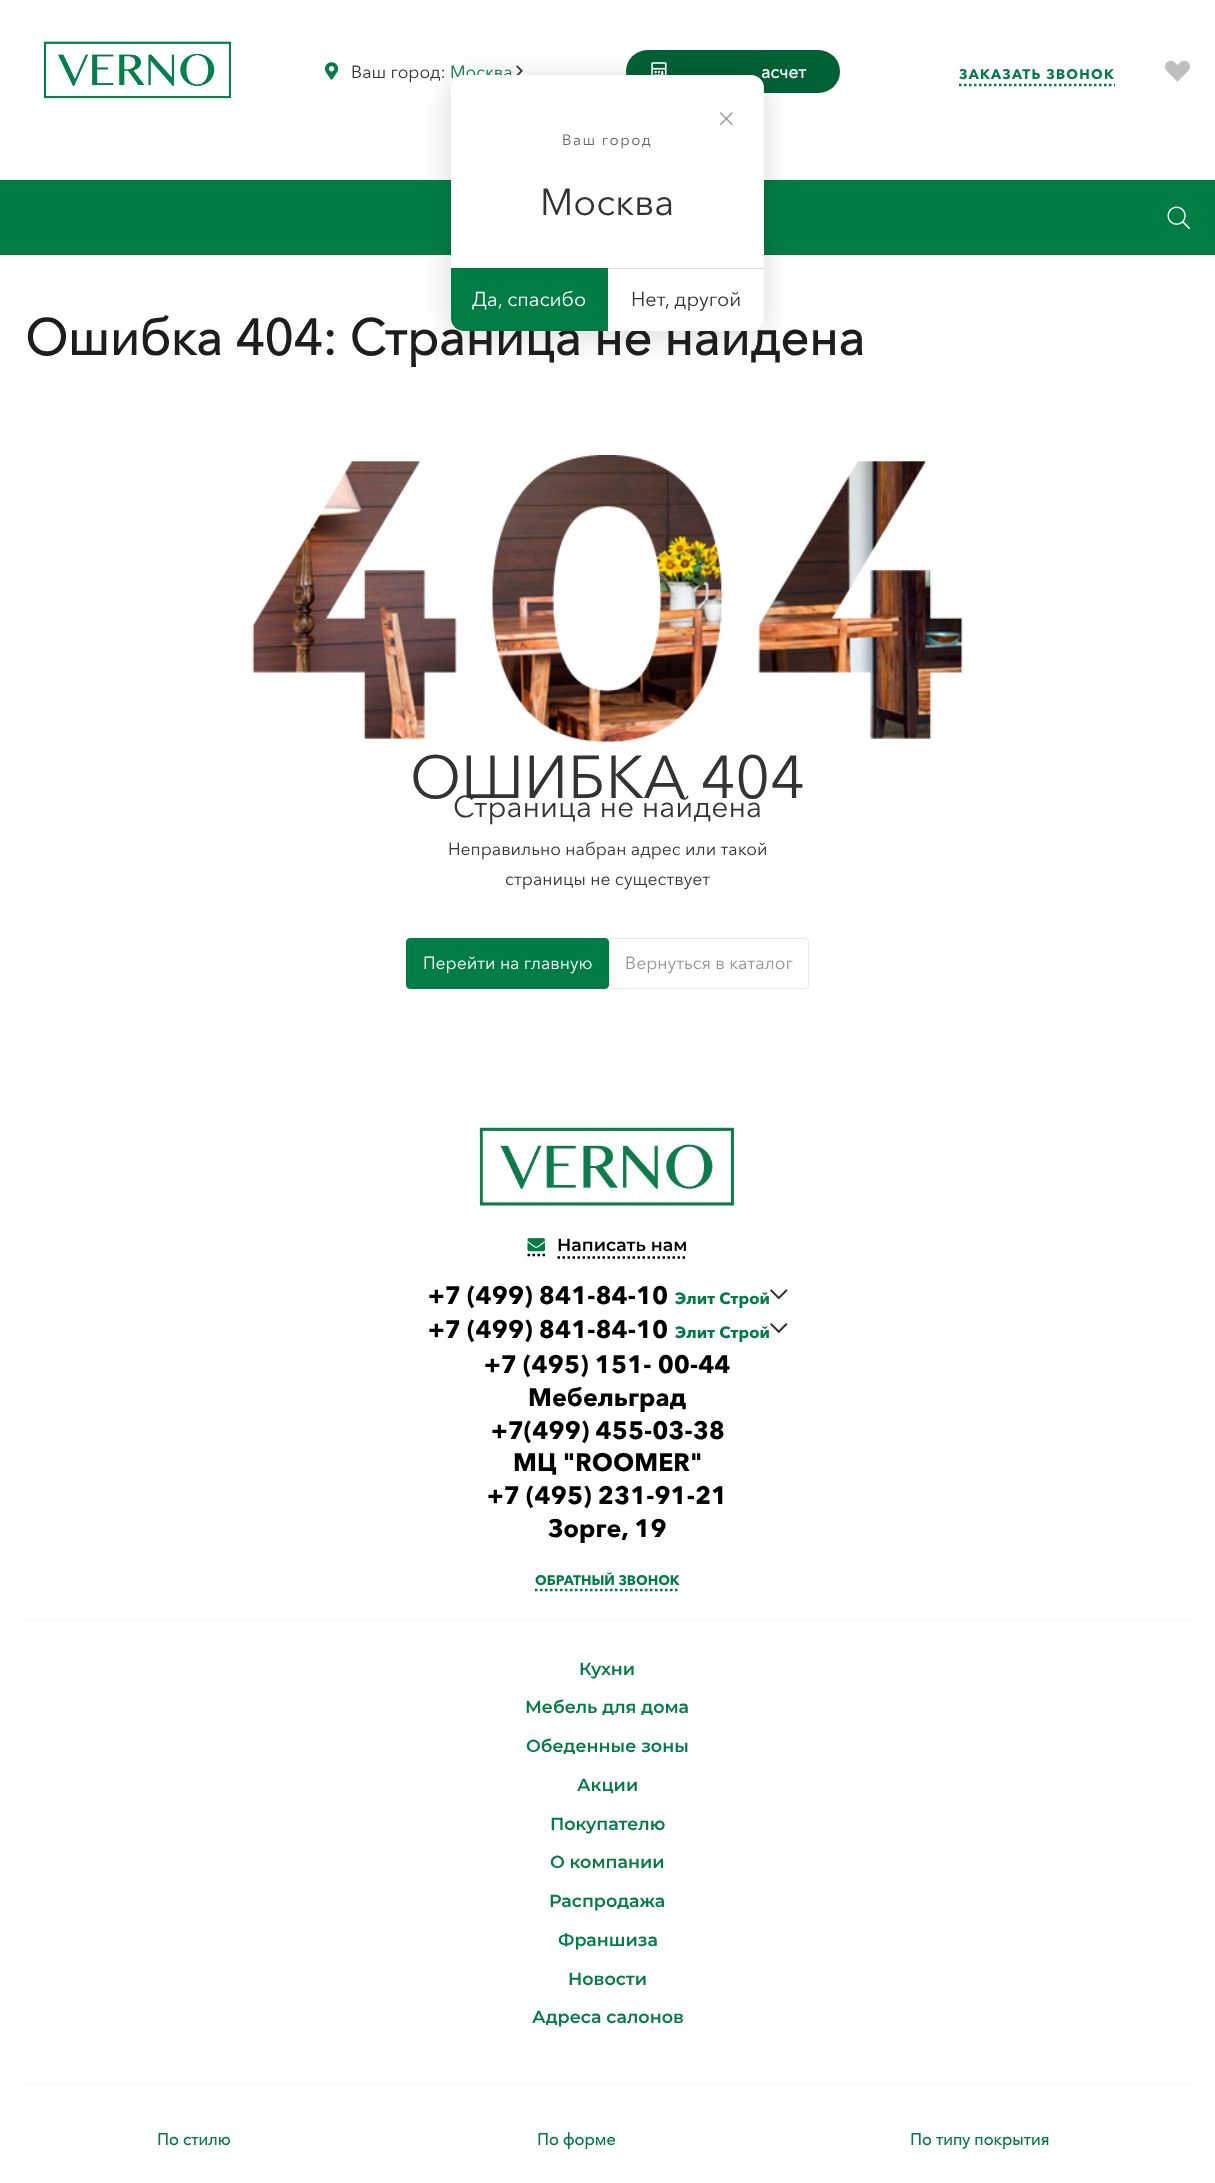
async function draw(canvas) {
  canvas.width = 1215
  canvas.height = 2183
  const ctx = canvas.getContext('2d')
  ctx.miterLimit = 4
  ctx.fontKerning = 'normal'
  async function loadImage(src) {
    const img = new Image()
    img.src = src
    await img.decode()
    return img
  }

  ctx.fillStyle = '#fff'
  ctx.fillRect(0, 0, 1215, 2183)
  ctx.drawImage(await loadImage('image0.png'), 43, 41, 188, 58)
  ctx.drawImage(await loadImage('image1.png'), 325, 62, 14, 18)
  ctx.font = '17.5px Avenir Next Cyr'
  ctx.fillStyle = '#333'
  ctx.fillText('Ваш город:', 351, 78)
  ctx.fillStyle = '#007d45'
  ctx.fillText('Москва', 450, 78)
  ctx.drawImage(await loadImage('image2.png'), 516, 65, 7, 10)
  ctx.fillStyle = '#006136'
  ctx.beginPath()
  ctx.roundRect(626, 50, 214, 43, 21.5)
  ctx.fill()
  ctx.drawImage(await loadImage('image3.png'), 651, 62, 16, 13)
  ctx.font = 'bold 17.5px Avenir Next Cyr'
  ctx.fillStyle = '#fff'
  ctx.fillText('асчет', 761, 78)
  ctx.beginPath()
  ctx.moveTo(959, 85)
  ctx.lineTo(1115, 85)
  ctx.strokeStyle = '#007d45'
  ctx.lineWidth = 2.5
  ctx.setLineDash([2.5, 2.5])
  ctx.stroke()
  ctx.letterSpacing = '1.25px'
  ctx.font = 'bold 13.75px "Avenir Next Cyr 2"'
  ctx.fillStyle = '#007d45'
  ctx.fillText('ЗАКАЗАТЬ ЗВОНОК', 959, 79)
  ctx.drawImage(await loadImage('image4.png'), 1165, 60, 25, 22)
  ctx.fillRect(0, 180, 1215, 75)
  ctx.fillStyle = '#00000026'
  ctx.filter = 'blur(15.5px)'
  ctx.beginPath()
  ctx.roundRect(451, 80, 313, 256, 13)
  ctx.fill()
  ctx.filter = 'none'
  ctx.letterSpacing = '0px'
  ctx.font = 'bold 50px Avenir Next Cyr'
  ctx.fillStyle = '#1e1d1d'
  ctx.fillText('Ошибка 404: Страница не найдена', 25, 355)
  ctx.fillStyle = '#fff'
  ctx.beginPath()
  ctx.roundRect(451, 75, 313, 256, 13)
  ctx.fill()
  ctx.drawImage(await loadImage('image5.png'), 719, 112, 14, 14)
  ctx.letterSpacing = '1.5px'
  ctx.font = '15px Avenir Next Cyr'
  ctx.fillStyle = '#666'
  ctx.fillText('Ваш город', 562, 145)
  ctx.letterSpacing = '0px'
  ctx.font = '37.5px Avenir Next Cyr'
  ctx.fillStyle = '#333'
  ctx.fillText('Москва', 540, 215)
  ctx.fillStyle = '#dcdcdc'
  ctx.fillRect(608, 268, 156, 1)
  ctx.fillStyle = '#007d45'
  ctx.beginPath()
  ctx.roundRect(451, 268, 157, 63, [0, 0, 0, 13])
  ctx.fill()
  ctx.font = '20px Avenir Next Cyr'
  ctx.fillStyle = '#fff'
  ctx.fillText('Да, спасибо', 472, 306)
  ctx.fillStyle = '#333'
  ctx.fillText('Нет, другой', 631, 306)
  ctx.drawImage(await loadImage('image6.png'), 1167, 206, 23, 23)
  ctx.drawImage(await loadImage('image7.png'), 252, 455, 711, 288)
  ctx.font = '60px Avenir Next Cyr'
  ctx.fillText('ОШИБКА 404', 410, 798)
  ctx.font = '30px Avenir Next Cyr'
  ctx.fillText('Страница не найдена', 453, 817)
  ctx.font = '17.5px Avenir Next Cyr'
  ctx.fillText('Неправильно набран адрес или такой', 448, 855)
  ctx.fillText('страницы не существует', 505, 885)
  ctx.fillStyle = '#007d45'
  ctx.beginPath()
  ctx.roundRect(406.5, 938.5, 202, 50, 3.5)
  ctx.fill()
  ctx.lineWidth = 1
  ctx.setLineDash([])
  ctx.stroke()
  ctx.fillStyle = '#fff'
  ctx.fillText('Перейти на главную', 423, 969)
  ctx.beginPath()
  ctx.roundRect(609.5, 938.5, 199, 50, 3.5)
  ctx.strokeStyle = '#e7e7e7'
  ctx.stroke()
  ctx.fillStyle = '#939393'
  ctx.fillText('Вернуться в каталог', 625, 969)
  ctx.drawImage(await loadImage('image8.png'), 479, 1127, 256, 79)
  ctx.beginPath()
  ctx.moveTo(527.5, 1255)
  ctx.lineTo(530, 1255)
  ctx.moveTo(532.5, 1255)
  ctx.lineTo(535, 1255)
  ctx.moveTo(537.5, 1255)
  ctx.lineTo(540, 1255)
  ctx.moveTo(542.5, 1255)
  ctx.lineTo(545, 1255)
  ctx.strokeStyle = '#000'
  ctx.lineWidth = 2.5
  ctx.stroke()
  ctx.beginPath()
  ctx.moveTo(557.5, 1257.5)
  ctx.lineTo(687.5, 1257.5)
  ctx.setLineDash([2.5, 2.5])
  ctx.stroke()
  ctx.drawImage(await loadImage('image9.png'), 527, 1238, 18, 14)
  ctx.font = '600 17.5px Montserrat'
  ctx.fillStyle = '#000'
  ctx.fillText('Написать нам', 557, 1251)
  ctx.font = 'bold 25px "Avenir Next Cyr 2"'
  ctx.fillText('+7 (499) 841-84-10', 428, 1304)
  ctx.font = 'bold 16.25px "Avenir Next Cyr 2"'
  ctx.fillStyle = '#007d45'
  ctx.fillText('Элит Строй', 675, 1304)
  ctx.drawImage(await loadImage('image10.png'), 770, 1289, 18, 11)
  ctx.font = 'bold 25px "Avenir Next Cyr 2"'
  ctx.fillStyle = '#000'
  ctx.fillText('+7 (499) 841-84-10', 428, 1338)
  ctx.font = 'bold 16.25px "Avenir Next Cyr 2"'
  ctx.fillStyle = '#007d45'
  ctx.fillText('Элит Строй', 675, 1338)
  ctx.drawImage(await loadImage('image11.png'), 770, 1323, 18, 10)
  ctx.font = 'bold 25px "Avenir Next Cyr 2"'
  ctx.fillStyle = '#000'
  ctx.fillText('+7 (495) 151- 00-44', 484, 1373)
  ctx.fillText('Мебельград', 528, 1406)
  ctx.fillText('+7(499) 455-03-38', 491, 1439)
  ctx.fillText('МЦ "ROOMER"', 513, 1471)
  ctx.fillText('+7 (495) 231-91-21', 487, 1504)
  ctx.fillText('Зорге, 19', 548, 1537)
  ctx.font = 'bold 13.75px "Avenir Next Cyr 2"'
  ctx.fillStyle = '#007d45'
  ctx.fillText('ОБРАТНЫЙ ЗВОНОК', 535, 1585)
  ctx.beginPath()
  ctx.moveTo(535, 1590)
  ctx.lineTo(680, 1590)
  ctx.strokeStyle = '#007d45'
  ctx.stroke()
  ctx.fillStyle = '#f5f5f5'
  ctx.fillRect(25, 1620, 1165, 1)
  ctx.fillRect(25, 2084, 1165, 1)
  ctx.font = '600 17.5px Montserrat'
  ctx.fillStyle = '#007d45'
  ctx.fillText('Кухни', 579, 1675)
  ctx.fillText('Мебель для дома', 525, 1713)
  ctx.fillText('Обеденные зоны', 526, 1752)
  ctx.fillText('Акции', 577, 1791)
  ctx.fillText('Покупателю', 550, 1830)
  ctx.fillText('О компании', 550, 1868)
  ctx.fillText('Распродажа', 549, 1907)
  ctx.fillText('Франшиза', 558, 1946)
  ctx.fillText('Новости', 568, 1985)
  ctx.fillText('Адреса салонов', 532, 2023)
  ctx.font = 'bold 16.25px Avenir Next Cyr'
  ctx.fillText('По стилю', 157, 2145)
  ctx.fillText('По форме', 537, 2145)
  ctx.fillText('По типу покрытия', 910, 2145)
}

draw(document.querySelector('canvas'))
